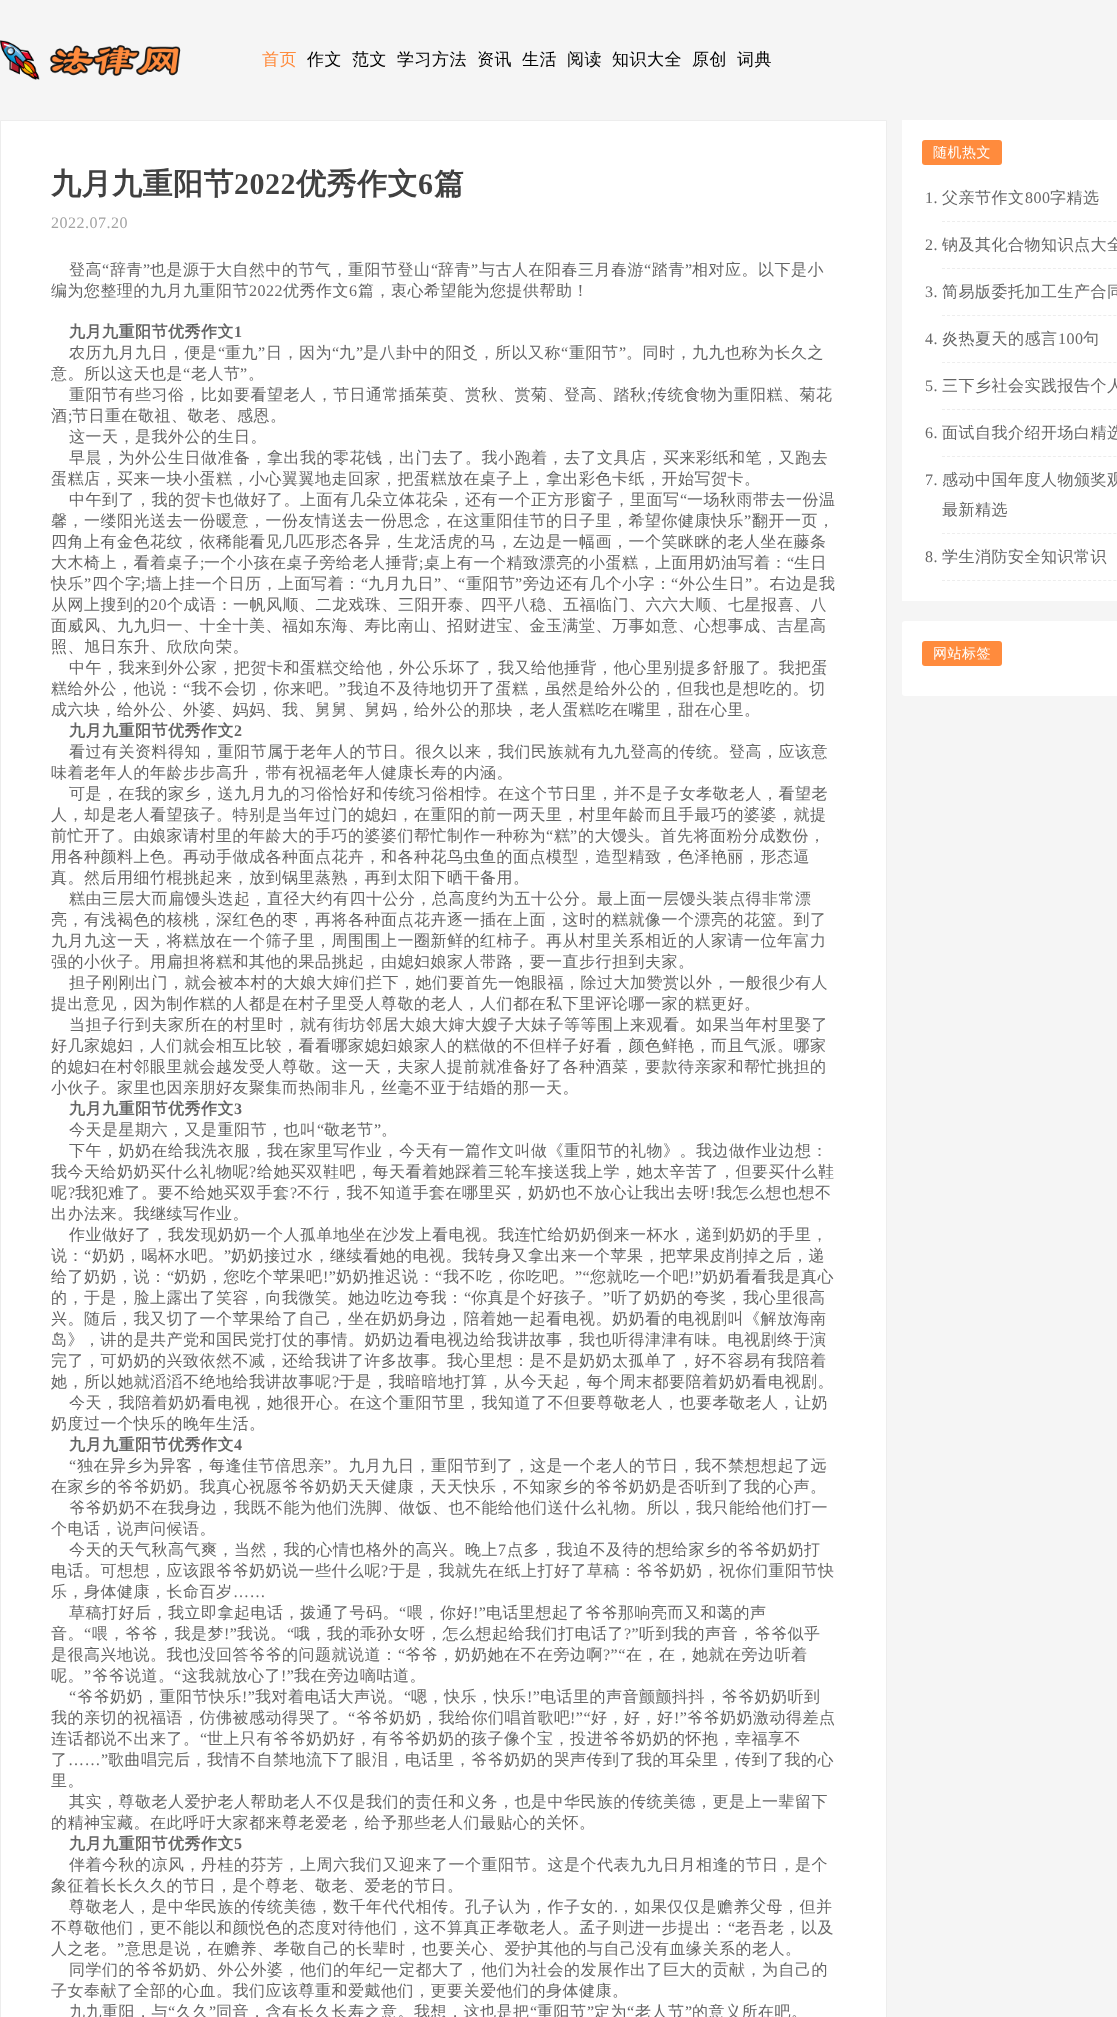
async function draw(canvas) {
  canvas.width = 1117
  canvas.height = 2017
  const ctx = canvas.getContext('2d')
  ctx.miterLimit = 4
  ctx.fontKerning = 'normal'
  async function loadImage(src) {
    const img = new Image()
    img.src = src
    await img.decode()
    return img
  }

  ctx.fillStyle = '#f5f5f5'
  ctx.fillRect(0, 0, 1117, 2017)
  ctx.drawImage(await loadImage('image0.png'), 0, 40, 181, 40)
  ctx.letterSpacing = '0.5px'
  ctx.font = '500 17px WenQuanYi Zen Hei'
  ctx.fillStyle = '#ff8b3d'
  ctx.fillText('首页', 262, 65)
  ctx.fillStyle = '#000'
  ctx.fillText('作文', 307, 65)
  ctx.fillText('范文', 352, 65)
  ctx.fillText('学习方法', 397, 65)
  ctx.fillText('资讯', 477, 65)
  ctx.fillText('生活', 522, 65)
  ctx.fillText('阅读', 567, 65)
  ctx.fillText('知识大全', 612, 65)
  ctx.fillText('原创', 692, 65)
  ctx.fillText('词典', 737, 65)
  ctx.fillStyle = '#fff'
  ctx.beginPath()
  ctx.rect(0.5, 120.5, 886, 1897)
  ctx.fill()
  ctx.strokeStyle = '#ededed'
  ctx.stroke()
  ctx.font = 'bold 30px WenQuanYi Zen Hei'
  ctx.fillStyle = '#414141'
  ctx.fillText('九月九重阳节', 51, 194)
  ctx.font = 'bold 30px Liberation Serif'
  ctx.fillText('2022', 234, 194)
  ctx.font = 'bold 30px WenQuanYi Zen Hei'
  ctx.fillText('优秀作文', 296, 194)
  ctx.font = 'bold 30px Liberation Serif'
  ctx.fillText('6', 418, 194)
  ctx.font = 'bold 30px WenQuanYi Zen Hei'
  ctx.fillText('篇', 434, 194)
  ctx.font = '16px Liberation Serif'
  ctx.fillStyle = '#a2a2a2'
  ctx.fillText('2022.07.20', 51, 228)
  ctx.font = '500 16px WenQuanYi Zen Hei'
  ctx.fillStyle = '#656565'
  ctx.fillText('登高', 69, 275)
  ctx.font = '16px Liberation Serif'
  ctx.fillText('“', 102, 275)
  ctx.font = '500 16px WenQuanYi Zen Hei'
  ctx.fillText('辞青', 110, 275)
  ctx.font = '16px Liberation Serif'
  ctx.fillText('”', 143, 275)
  ctx.font = '500 16px WenQuanYi Zen Hei'
  ctx.fillText('也是源于大自然中的节气，重阳节登山', 150, 275)
  ctx.font = '16px Liberation Serif'
  ctx.fillText('“', 431, 275)
  ctx.font = '500 16px WenQuanYi Zen Hei'
  ctx.fillText('辞青', 438, 275)
  ctx.font = '16px Liberation Serif'
  ctx.fillText('”', 471, 275)
  ctx.font = '500 16px WenQuanYi Zen Hei'
  ctx.fillText('与古人在阳春三月春游', 479, 275)
  ctx.font = '16px Liberation Serif'
  ctx.fillText('“', 644, 275)
  ctx.font = '500 16px WenQuanYi Zen Hei'
  ctx.fillText('踏青', 652, 275)
  ctx.font = '16px Liberation Serif'
  ctx.fillText('”', 685, 275)
  ctx.font = '500 16px WenQuanYi Zen Hei'
  ctx.fillText('相对应。以下是小', 692, 275)
  ctx.fillText('编为您整理的九月九重阳节', 51, 296)
  ctx.font = '16px Liberation Serif'
  ctx.fillText('2022', 249, 296)
  ctx.font = '500 16px WenQuanYi Zen Hei'
  ctx.fillText('优秀作文', 283, 296)
  ctx.font = '16px Liberation Serif'
  ctx.fillText('6', 349, 296)
  ctx.font = '500 16px WenQuanYi Zen Hei'
  ctx.fillText('篇，衷心希望能为您提供帮助！', 358, 296)
  ctx.font = 'bold 16px WenQuanYi Zen Hei'
  ctx.fillText('九月九重阳节优秀作文', 69, 337)
  ctx.font = 'bold 16px Liberation Serif'
  ctx.fillText('1', 234, 337)
  ctx.font = '500 16px WenQuanYi Zen Hei'
  ctx.fillText('农历九月九日，便是', 69, 358)
  ctx.font = '16px Liberation Serif'
  ctx.fillText('“', 218, 358)
  ctx.font = '500 16px WenQuanYi Zen Hei'
  ctx.fillText('重九', 225, 358)
  ctx.font = '16px Liberation Serif'
  ctx.fillText('”', 258, 358)
  ctx.font = '500 16px WenQuanYi Zen Hei'
  ctx.fillText('日，因为', 266, 358)
  ctx.font = '16px Liberation Serif'
  ctx.fillText('“', 332, 358)
  ctx.font = '500 16px WenQuanYi Zen Hei'
  ctx.fillText('九', 339, 358)
  ctx.font = '16px Liberation Serif'
  ctx.fillText('”', 356, 358)
  ctx.font = '500 16px WenQuanYi Zen Hei'
  ctx.fillText('是八卦中的阳爻，所以又称', 363, 358)
  ctx.font = '16px Liberation Serif'
  ctx.fillText('“', 561, 358)
  ctx.font = '500 16px WenQuanYi Zen Hei'
  ctx.fillText('重阳节', 569, 358)
  ctx.font = '16px Liberation Serif'
  ctx.fillText('”', 619, 358)
  ctx.font = '500 16px WenQuanYi Zen Hei'
  ctx.fillText('。同时，九九也称为长久之', 626, 358)
  ctx.fillText('意。所以这天也是', 51, 379)
  ctx.font = '16px Liberation Serif'
  ctx.fillText('“', 183, 379)
  ctx.font = '500 16px WenQuanYi Zen Hei'
  ctx.fillText('老人节', 191, 379)
  ctx.font = '16px Liberation Serif'
  ctx.fillText('”', 240, 379)
  ctx.font = '500 16px WenQuanYi Zen Hei'
  ctx.fillText('。', 248, 379)
  ctx.fillText('重阳节有些习俗，比如要看望老人，节日通常插茱萸、赏秋、赏菊、登高、踏秋', 69, 400)
  ctx.font = '16px Liberation Serif'
  ctx.fillText(';', 647, 400)
  ctx.font = '500 16px WenQuanYi Zen Hei'
  ctx.fillText('传统食物为重阳糕、菊花', 651, 400)
  ctx.fillText('酒', 51, 421)
  ctx.font = '16px Liberation Serif'
  ctx.fillText(';', 68, 421)
  ctx.font = '500 16px WenQuanYi Zen Hei'
  ctx.fillText('节日重在敬祖、敬老、感恩。', 72, 421)
  ctx.fillText('这一天，是我外公的生日。', 69, 442)
  ctx.fillText('早晨，为外公生日做准备，拿出我的零花钱，出门去了。我小跑着，去了文具店，买来彩纸和笔，又跑去', 69, 463)
  ctx.fillText('蛋糕店，买来一块小蛋糕，小心翼翼地走回家，把蛋糕放在桌子上，拿出彩色卡纸，开始写贺卡。', 51, 484)
  ctx.fillText('中午到了，我的贺卡也做好了。上面有几朵立体花朵，还有一个正方形窗子，里面写', 69, 505)
  ctx.font = '16px Liberation Serif'
  ctx.fillText('“', 680, 505)
  ctx.font = '500 16px WenQuanYi Zen Hei'
  ctx.fillText('一场秋雨带去一份温', 687, 505)
  ctx.fillText('馨，一缕阳光送去一份暖意，一份友情送去一份思念，在这重阳佳节的日子里，希望你健康快乐', 51, 526)
  ctx.font = '16px Liberation Serif'
  ctx.fillText('”', 744, 526)
  ctx.font = '500 16px WenQuanYi Zen Hei'
  ctx.fillText('翻开一页，', 752, 526)
  ctx.fillText('四角上有金色花纹，依稀能看见几匹形态各异，生龙活虎的马，左边是一幅画，一个笑眯眯的老人坐在藤条', 51, 547)
  ctx.fillText('大木椅上，看着桌子', 51, 568)
  ctx.fillText('一个小孩在桌子旁给老人捶背', 204, 568)
  ctx.fillText('桌上有一个精致漂亮的小蛋糕，上面用奶油写着：', 424, 568)
  ctx.font = '16px Liberation Serif'
  ctx.fillText('“', 787, 568)
  ctx.font = '500 16px WenQuanYi Zen Hei'
  ctx.fillText('生日', 794, 568)
  ctx.font = '16px Liberation Serif'
  ctx.fillText(';', 200, 568)
  ctx.fillText(';', 419, 568)
  ctx.font = '500 16px WenQuanYi Zen Hei'
  ctx.fillText('快乐', 51, 589)
  ctx.font = '16px Liberation Serif'
  ctx.fillText('”', 84, 589)
  ctx.font = '500 16px WenQuanYi Zen Hei'
  ctx.fillText('四个字', 92, 589)
  ctx.fillText('墙上挂一个日历，上面写着：', 146, 589)
  ctx.font = '16px Liberation Serif'
  ctx.fillText('“', 361, 589)
  ctx.font = '500 16px WenQuanYi Zen Hei'
  ctx.fillText('九月九日', 368, 589)
  ctx.font = '16px Liberation Serif'
  ctx.fillText('”', 434, 589)
  ctx.fillText('“', 458, 589)
  ctx.font = '500 16px WenQuanYi Zen Hei'
  ctx.fillText('重阳节', 466, 589)
  ctx.font = '16px Liberation Serif'
  ctx.fillText('”', 515, 589)
  ctx.font = '500 16px WenQuanYi Zen Hei'
  ctx.fillText('旁边还有几个小字：', 523, 589)
  ctx.font = '16px Liberation Serif'
  ctx.fillText('“', 671, 589)
  ctx.font = '500 16px WenQuanYi Zen Hei'
  ctx.fillText('外公生日', 679, 589)
  ctx.font = '16px Liberation Serif'
  ctx.fillText('”', 745, 589)
  ctx.font = '500 16px WenQuanYi Zen Hei'
  ctx.fillText('。右边是我', 753, 589)
  ctx.font = '16px Liberation Serif'
  ctx.fillText(';', 141, 589)
  ctx.font = '500 16px WenQuanYi Zen Hei'
  ctx.fillText('、', 442, 589)
  ctx.fillText('从网上搜到的', 51, 610)
  ctx.font = '16px Liberation Serif'
  ctx.fillText('20', 150, 610)
  ctx.font = '500 16px WenQuanYi Zen Hei'
  ctx.fillText('个成语：一帆风顺、二龙戏珠、三阳开泰、四平八稳、五福临门、六六大顺、七星报喜、八', 167, 610)
  ctx.fillText('面威风、九九归一、十全十美、福如东海、寿比南山、招财进宝、金玉满堂、万事如意、心想事成、吉星高', 51, 631)
  ctx.fillText('照、旭日东升、欣欣向荣。', 51, 652)
  ctx.fillText('中午，我来到外公家，把贺卡和蛋糕交给他，外公乐坏了，我又给他捶背，他心里别提多舒服了。我把蛋', 69, 673)
  ctx.fillText('糕给外公，他说：', 51, 694)
  ctx.font = '16px Liberation Serif'
  ctx.fillText('“', 183, 694)
  ctx.font = '500 16px WenQuanYi Zen Hei'
  ctx.fillText('我不会切，你来吧。', 191, 694)
  ctx.font = '16px Liberation Serif'
  ctx.fillText('”', 339, 694)
  ctx.font = '500 16px WenQuanYi Zen Hei'
  ctx.fillText('我迫不及待地切开了蛋糕，虽然是给外公的，但我也是想吃的。切', 347, 694)
  ctx.fillText('成六块，给外公、外婆、妈妈、我、舅舅、舅妈，给外公的那块，老人蛋糕吃在嘴里，甜在心里。', 51, 715)
  ctx.font = 'bold 16px WenQuanYi Zen Hei'
  ctx.fillText('九月九重阳节优秀作文', 69, 736)
  ctx.font = 'bold 16px Liberation Serif'
  ctx.fillText('2', 234, 736)
  ctx.font = '500 16px WenQuanYi Zen Hei'
  ctx.fillText('看过有关资料得知，重阳节属于老年人的节日。很久以来，我们民族就有九九登高的传统。登高，应该意', 69, 757)
  ctx.fillText('味着老年人的年龄步步高升，带有祝福老年人健康长寿的内涵。', 51, 778)
  ctx.fillText('可是，在我的家乡，送九月九的习俗恰好和传统习俗相悖。在这个节日里，并不是子女孝敬老人，看望老', 69, 799)
  ctx.fillText('人，却是老人看望孩子。特别是当年过门的媳妇，在重阳的前一两天里，村里年龄而且手最巧的婆婆，就提', 51, 820)
  ctx.fillText('前忙开了。由娘家请村里的年龄大的手巧的婆婆们帮忙制作一种称为', 51, 841)
  ctx.font = '16px Liberation Serif'
  ctx.fillText('“', 546, 841)
  ctx.font = '500 16px WenQuanYi Zen Hei'
  ctx.fillText('糕', 554, 841)
  ctx.font = '16px Liberation Serif'
  ctx.fillText('”', 570, 841)
  ctx.font = '500 16px WenQuanYi Zen Hei'
  ctx.fillText('的大馒头。首先将面粉分成数份，', 578, 841)
  ctx.fillText('用各种颜料上色。再动手做成各种面点花卉，和各种花鸟虫鱼的面点模型，造型精致，色泽艳丽，形态逼', 51, 862)
  ctx.fillText('真。然后用细竹棍挑起来，放到锅里蒸熟，再到太阳下晒干备用。', 51, 883)
  ctx.fillText('糕由三层大而扁馒头迭起，直径大约有四十公分，总高度约为五十公分。最上面一层馒头装点得非常漂', 69, 904)
  ctx.fillText('亮，有浅褐色的核桃，深红色的枣，再将各种面点花卉逐一插在上面，这时的糕就像一个漂亮的花篮。到了', 51, 925)
  ctx.fillText('九月九这一天，将糕放在一个筛子里，周围围上一圈新鲜的红柿子。再从村里关系相近的人家请一位年富力', 51, 946)
  ctx.fillText('强的小伙子。用扁担将糕和其他的果品挑起，由媳妇娘家人带路，要一直步行担到夫家。', 51, 967)
  ctx.fillText('担子刚刚出门，就会被本村的大娘大婶们拦下，她们要首先一饱眼福，除过大加赞赏以外，一般很少有人', 69, 988)
  ctx.fillText('提出意见，因为制作糕的人都是在村子里受人尊敬的老人，人们都在私下里评论哪一家的糕更好。', 51, 1009)
  ctx.fillText('当担子行到夫家所在的村里时，就有街坊邻居大娘大婶大嫂子大妹子等等围上来观看。如果当年村里娶了', 69, 1030)
  ctx.fillText('好几家媳妇，人们就会相互比较，看看哪家媳妇娘家人的糕做的不但样子好看，颜色鲜艳，而且气派。哪家', 51, 1051)
  ctx.fillText('的媳妇在村邻眼里就会越发受人尊敬。这一天，夫家人提前就准备好了各种酒菜，要款待亲家和帮忙挑担的', 51, 1072)
  ctx.fillText('小伙子。家里也因亲朋好友聚集而热闹非凡，丝毫不亚于结婚的那一天。', 51, 1093)
  ctx.font = 'bold 16px WenQuanYi Zen Hei'
  ctx.fillText('九月九重阳节优秀作文', 69, 1114)
  ctx.font = 'bold 16px Liberation Serif'
  ctx.fillText('3', 234, 1114)
  ctx.font = '500 16px WenQuanYi Zen Hei'
  ctx.fillText('今天是星期六，又是重阳节，也叫', 69, 1135)
  ctx.font = '16px Liberation Serif'
  ctx.fillText('“', 317, 1135)
  ctx.font = '500 16px WenQuanYi Zen Hei'
  ctx.fillText('敬老节', 324, 1135)
  ctx.font = '16px Liberation Serif'
  ctx.fillText('”', 374, 1135)
  ctx.font = '500 16px WenQuanYi Zen Hei'
  ctx.fillText('。', 381, 1135)
  ctx.fillText('下午，奶奶在给我洗衣服，我在家里写作业，今天有一篇作文叫做《重阳节的礼物》。我边做作业边想：', 69, 1156)
  ctx.fillText('我今天给奶奶买什么礼物呢', 51, 1177)
  ctx.font = '16px Liberation Serif'
  ctx.fillText('?', 249, 1177)
  ctx.font = '500 16px WenQuanYi Zen Hei'
  ctx.fillText('给她买双鞋吧，每天看着她踩着三轮车接送我上学，她太辛苦了，但要买什么鞋', 257, 1177)
  ctx.fillText('呢', 51, 1198)
  ctx.font = '16px Liberation Serif'
  ctx.fillText('?', 68, 1198)
  ctx.font = '500 16px WenQuanYi Zen Hei'
  ctx.fillText('我犯难了。要不给她买双手套', 75, 1198)
  ctx.font = '16px Liberation Serif'
  ctx.fillText('?', 290, 1198)
  ctx.font = '500 16px WenQuanYi Zen Hei'
  ctx.fillText('不行，我不知道手套在哪里买，奶奶也不放心让我出去呀', 297, 1198)
  ctx.font = '16px Liberation Serif'
  ctx.fillText('!', 710, 1198)
  ctx.font = '500 16px WenQuanYi Zen Hei'
  ctx.fillText('我怎么想也想不', 716, 1198)
  ctx.fillText('出办法来。我继续写作业。', 51, 1219)
  ctx.fillText('作业做好了，我发现奶奶一个人孤单地坐在沙发上看电视。我连忙给奶奶倒来一杯水，递到奶奶的手里，', 69, 1240)
  ctx.fillText('说：', 51, 1261)
  ctx.font = '16px Liberation Serif'
  ctx.fillText('“', 84, 1261)
  ctx.font = '500 16px WenQuanYi Zen Hei'
  ctx.fillText('奶奶，喝杯水吧。', 92, 1261)
  ctx.font = '16px Liberation Serif'
  ctx.fillText('”', 224, 1261)
  ctx.font = '500 16px WenQuanYi Zen Hei'
  ctx.fillText('奶奶接过水，继续看她的电视。我转身又拿出来一个苹果，把苹果皮削掉之后，递', 231, 1261)
  ctx.fillText('给了奶奶，说：', 51, 1282)
  ctx.font = '16px Liberation Serif'
  ctx.fillText('“', 167, 1282)
  ctx.font = '500 16px WenQuanYi Zen Hei'
  ctx.fillText('奶奶，您吃个苹果吧', 174, 1282)
  ctx.font = '16px Liberation Serif'
  ctx.fillText('!”', 323, 1282)
  ctx.font = '500 16px WenQuanYi Zen Hei'
  ctx.fillText('奶奶推迟说：', 336, 1282)
  ctx.font = '16px Liberation Serif'
  ctx.fillText('“', 435, 1282)
  ctx.font = '500 16px WenQuanYi Zen Hei'
  ctx.fillText('我不吃，你吃吧。', 443, 1282)
  ctx.font = '16px Liberation Serif'
  ctx.fillText('”“', 575, 1282)
  ctx.font = '500 16px WenQuanYi Zen Hei'
  ctx.fillText('您就吃一个吧', 590, 1282)
  ctx.font = '16px Liberation Serif'
  ctx.fillText('!”', 689, 1282)
  ctx.font = '500 16px WenQuanYi Zen Hei'
  ctx.fillText('奶奶看看我是真心', 702, 1282)
  ctx.fillText('的，于是，脸上露出了笑容，向我微笑。她边吃边夸我：', 51, 1303)
  ctx.font = '16px Liberation Serif'
  ctx.fillText('“', 464, 1303)
  ctx.font = '500 16px WenQuanYi Zen Hei'
  ctx.fillText('你真是个好孩子。', 471, 1303)
  ctx.font = '16px Liberation Serif'
  ctx.fillText('”', 603, 1303)
  ctx.font = '500 16px WenQuanYi Zen Hei'
  ctx.fillText('听了奶奶的夸奖，我心里很高', 611, 1303)
  ctx.fillText('兴。随后，我又切了一个苹果给了自己，坐在奶奶身边，陪着她一起看电视。奶奶看的电视剧叫《解放海南', 51, 1324)
  ctx.fillText('岛》，讲的是共产党和国民党打仗的事情。奶奶边看电视边给我讲故事，我也听得津津有味。电视剧终于演', 51, 1345)
  ctx.fillText('完了，可奶奶的兴致依然不减，还给我讲了许多故事。我心里想：是不是奶奶太孤单了，好不容易有我陪着', 51, 1366)
  ctx.fillText('她，所以她就滔滔不绝地给我讲故事呢', 51, 1387)
  ctx.font = '16px Liberation Serif'
  ctx.fillText('?', 332, 1387)
  ctx.font = '500 16px WenQuanYi Zen Hei'
  ctx.fillText('于是，我暗暗地打算，从今天起，每个周末都要陪着奶奶看电视剧。', 339, 1387)
  ctx.fillText('今天，我陪着奶奶看电视，她很开心。在这个重阳节里，我知道了不但要尊敬老人，也要孝敬老人，让奶', 69, 1408)
  ctx.fillText('奶度过一个快乐的晚年生活。', 51, 1429)
  ctx.font = 'bold 16px WenQuanYi Zen Hei'
  ctx.fillText('九月九重阳节优秀作文', 69, 1450)
  ctx.font = 'bold 16px Liberation Serif'
  ctx.fillText('4', 234, 1450)
  ctx.font = '16px Liberation Serif'
  ctx.fillText('“', 69, 1471)
  ctx.font = '500 16px WenQuanYi Zen Hei'
  ctx.fillText('独在异乡为异客，每逢佳节倍思亲', 77, 1471)
  ctx.font = '16px Liberation Serif'
  ctx.fillText('”', 324, 1471)
  ctx.font = '500 16px WenQuanYi Zen Hei'
  ctx.fillText('。九月九日，重阳节到了，这是一个老人的节日，我不禁想想起了远', 332, 1471)
  ctx.fillText('在家乡的爷爷奶奶。我真心祝愿爷爷奶奶天天健康，天天快乐，不知家乡的爷爷奶奶是否听到了我的心声。', 51, 1492)
  ctx.fillText('爷爷奶奶不在我身边，我既不能为他们洗脚、做饭、也不能给他们送什么礼物。所以，我只能给他们打一', 69, 1513)
  ctx.fillText('个电话，说声问候语。', 51, 1534)
  ctx.fillText('今天的天气秋高气爽，当然，我的心情也格外的高兴。晚上', 69, 1555)
  ctx.font = '16px Liberation Serif'
  ctx.fillText('7', 498, 1555)
  ctx.font = '500 16px WenQuanYi Zen Hei'
  ctx.fillText('点多，我迫不及待的想给家乡的爷爷奶奶打', 507, 1555)
  ctx.fillText('电话。可想想，应该跟爷爷奶奶说一些什么呢', 51, 1576)
  ctx.font = '16px Liberation Serif'
  ctx.fillText('?', 381, 1576)
  ctx.font = '500 16px WenQuanYi Zen Hei'
  ctx.fillText('于是，我就先在纸上打好了草稿：爷爷奶奶，祝你们重阳节快', 389, 1576)
  ctx.fillText('乐，身体健康，长命百岁', 51, 1597)
  ctx.font = '16px Liberation Serif'
  ctx.fillText('……', 233, 1597)
  ctx.font = '500 16px WenQuanYi Zen Hei'
  ctx.fillText('草稿打好后，我立即拿起电话，拨通了号码。', 69, 1618)
  ctx.font = '16px Liberation Serif'
  ctx.fillText('“', 399, 1618)
  ctx.font = '500 16px WenQuanYi Zen Hei'
  ctx.fillText('喂，你好', 407, 1618)
  ctx.font = '16px Liberation Serif'
  ctx.fillText('!”', 473, 1618)
  ctx.font = '500 16px WenQuanYi Zen Hei'
  ctx.fillText('电话里想起了爷爷那响亮而又和蔼的声', 486, 1618)
  ctx.fillText('音。', 51, 1639)
  ctx.font = '16px Liberation Serif'
  ctx.fillText('“', 84, 1639)
  ctx.font = '500 16px WenQuanYi Zen Hei'
  ctx.fillText('喂，爷爷，我是梦', 92, 1639)
  ctx.font = '16px Liberation Serif'
  ctx.fillText('!”', 224, 1639)
  ctx.font = '500 16px WenQuanYi Zen Hei'
  ctx.fillText('我说。', 237, 1639)
  ctx.font = '16px Liberation Serif'
  ctx.fillText('“', 287, 1639)
  ctx.font = '500 16px WenQuanYi Zen Hei'
  ctx.fillText('哦，我的乖孙女呀，怎么想起给我们打电话了', 294, 1639)
  ctx.font = '16px Liberation Serif'
  ctx.fillText('?”', 624, 1639)
  ctx.font = '500 16px WenQuanYi Zen Hei'
  ctx.fillText('听到我的声音，爷爷似乎', 639, 1639)
  ctx.fillText('是很高兴地说。我也没回答爷爷的问题就说道：', 51, 1660)
  ctx.font = '16px Liberation Serif'
  ctx.fillText('“', 398, 1660)
  ctx.font = '500 16px WenQuanYi Zen Hei'
  ctx.fillText('爷爷，奶奶她在不在旁边啊', 405, 1660)
  ctx.font = '16px Liberation Serif'
  ctx.fillText('?”“', 603, 1660)
  ctx.font = '500 16px WenQuanYi Zen Hei'
  ctx.fillText('在，在，她就在旁边听着', 626, 1660)
  ctx.fillText('呢。', 51, 1681)
  ctx.font = '16px Liberation Serif'
  ctx.fillText('”', 84, 1681)
  ctx.font = '500 16px WenQuanYi Zen Hei'
  ctx.fillText('爷爷说道。', 92, 1681)
  ctx.font = '16px Liberation Serif'
  ctx.fillText('“', 174, 1681)
  ctx.font = '500 16px WenQuanYi Zen Hei'
  ctx.fillText('这我就放心了', 182, 1681)
  ctx.font = '16px Liberation Serif'
  ctx.fillText('!”', 281, 1681)
  ctx.font = '500 16px WenQuanYi Zen Hei'
  ctx.fillText('我在旁边嘀咕道。', 294, 1681)
  ctx.font = '16px Liberation Serif'
  ctx.fillText('“', 69, 1702)
  ctx.font = '500 16px WenQuanYi Zen Hei'
  ctx.fillText('爷爷奶奶，重阳节快乐', 77, 1702)
  ctx.font = '16px Liberation Serif'
  ctx.fillText('!”', 242, 1702)
  ctx.font = '500 16px WenQuanYi Zen Hei'
  ctx.fillText('我对着电话大声说。', 255, 1702)
  ctx.font = '16px Liberation Serif'
  ctx.fillText('“', 404, 1702)
  ctx.font = '500 16px WenQuanYi Zen Hei'
  ctx.fillText('嗯，快乐，快乐', 411, 1702)
  ctx.font = '16px Liberation Serif'
  ctx.fillText('!”', 527, 1702)
  ctx.font = '500 16px WenQuanYi Zen Hei'
  ctx.fillText('电话里的声音颤颤抖抖，爷爷奶奶听到', 540, 1702)
  ctx.fillText('我的亲切的祝福语，仿佛被感动得哭了。', 51, 1723)
  ctx.font = '16px Liberation Serif'
  ctx.fillText('“', 348, 1723)
  ctx.font = '500 16px WenQuanYi Zen Hei'
  ctx.fillText('爷爷奶奶，我给你们唱首歌吧', 356, 1723)
  ctx.font = '16px Liberation Serif'
  ctx.fillText('!”“', 570, 1723)
  ctx.font = '500 16px WenQuanYi Zen Hei'
  ctx.fillText('好，好，好', 591, 1723)
  ctx.font = '16px Liberation Serif'
  ctx.fillText('!”', 674, 1723)
  ctx.font = '500 16px WenQuanYi Zen Hei'
  ctx.fillText('爷爷奶奶激动得差点', 687, 1723)
  ctx.fillText('连话都说不出来了。', 51, 1744)
  ctx.font = '16px Liberation Serif'
  ctx.fillText('“', 200, 1744)
  ctx.font = '500 16px WenQuanYi Zen Hei'
  ctx.fillText('世上只有爷爷奶奶好，有爷爷奶奶的孩子像个宝，投进爷爷奶奶的怀抱，幸福享不', 207, 1744)
  ctx.fillText('了', 51, 1765)
  ctx.font = '16px Liberation Serif'
  ctx.fillText('……”', 68, 1765)
  ctx.font = '500 16px WenQuanYi Zen Hei'
  ctx.fillText('歌曲唱完后，我情不自禁地流下了眼泪，电话里，爷爷奶奶的哭声传到了我的耳朵里，传到了我的心', 108, 1765)
  ctx.fillText('里。', 51, 1786)
  ctx.fillText('其实，尊敬老人爱护老人帮助老人不仅是我们的责任和义务，也是中华民族的传统美德，更是上一辈留下', 69, 1807)
  ctx.fillText('的精神宝藏。在此呼吁大家都来尊老爱老，给予那些老人们最贴心的关怀。', 51, 1828)
  ctx.font = 'bold 16px WenQuanYi Zen Hei'
  ctx.fillText('九月九重阳节优秀作文', 69, 1849)
  ctx.font = 'bold 16px Liberation Serif'
  ctx.fillText('5', 234, 1849)
  ctx.font = '500 16px WenQuanYi Zen Hei'
  ctx.fillText('伴着今秋的凉风，丹桂的芬芳，上周六我们又迎来了一个重阳节。这是个代表九九日月相逢的节日，是个', 69, 1870)
  ctx.fillText('象征着长长久久的节日，是个尊老、敬老、爱老的节日。', 51, 1891)
  ctx.fillText('尊敬老人，是中华民族的传统美德，数千年代代相传。孔子认为，作子女的', 69, 1912)
  ctx.font = '16px Liberation Serif'
  ctx.fillText('.', 614, 1912)
  ctx.font = '500 16px WenQuanYi Zen Hei'
  ctx.fillText('，如果仅仅是赡养父母，但并', 618, 1912)
  ctx.fillText('不尊敬他们，更不能以和颜悦色的态度对待他们，这不算真正孝敬老人。孟子则进一步提出：', 51, 1933)
  ctx.font = '16px Liberation Serif'
  ctx.fillText('“', 728, 1933)
  ctx.font = '500 16px WenQuanYi Zen Hei'
  ctx.fillText('老吾老，以及', 735, 1933)
  ctx.fillText('人之老。', 51, 1954)
  ctx.font = '16px Liberation Serif'
  ctx.fillText('”', 117, 1954)
  ctx.font = '500 16px WenQuanYi Zen Hei'
  ctx.fillText('意思是说，在赡养、孝敬自己的长辈时，也要关心、爱护其他的与自己没有血缘关系的老人。', 125, 1954)
  ctx.fillText('同学们的爷爷奶奶、外公外婆，他们的年纪一定都大了，他们为社会的发展作出了巨大的贡献，为自己的', 69, 1975)
  ctx.fillText('子女奉献了全部的心血。我们应该尊重和爱戴他们，更要关爱他们的身体健康。', 51, 1996)
  ctx.fillText('九九重阳，与', 69, 2017)
  ctx.font = '16px Liberation Serif'
  ctx.fillText('“', 168, 2017)
  ctx.font = '500 16px WenQuanYi Zen Hei'
  ctx.fillText('久久', 176, 2017)
  ctx.font = '16px Liberation Serif'
  ctx.fillText('”', 209, 2017)
  ctx.font = '500 16px WenQuanYi Zen Hei'
  ctx.fillText('同音，含有长久长寿之意。我想，这也是把', 216, 2017)
  ctx.font = '16px Liberation Serif'
  ctx.fillText('“', 530, 2017)
  ctx.font = '500 16px WenQuanYi Zen Hei'
  ctx.fillText('重阳节', 537, 2017)
  ctx.font = '16px Liberation Serif'
  ctx.fillText('”', 587, 2017)
  ctx.font = '500 16px WenQuanYi Zen Hei'
  ctx.fillText('定为', 594, 2017)
  ctx.font = '16px Liberation Serif'
  ctx.fillText('“', 627, 2017)
  ctx.font = '500 16px WenQuanYi Zen Hei'
  ctx.fillText('老人节', 635, 2017)
  ctx.font = '16px Liberation Serif'
  ctx.fillText('”', 685, 2017)
  ctx.font = '500 16px WenQuanYi Zen Hei'
  ctx.fillText('的意义所在吧。', 692, 2017)
  ctx.fillStyle = '#fff'
  ctx.fillRect(902, 120, 215, 481)
  ctx.fillStyle = '#ff8b3d'
  ctx.beginPath()
  ctx.roundRect(922, 140, 80, 25, 3)
  ctx.fill()
  ctx.font = '500 14px WenQuanYi Zen Hei'
  ctx.fillStyle = '#fff'
  ctx.fillText('随机热文', 933, 157)
  ctx.beginPath()
  ctx.moveTo(942, 221.5)
  ctx.lineTo(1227, 221.5)
  ctx.setLineDash([3, 2.04])
  ctx.stroke()
  ctx.font = '16px Liberation Serif'
  ctx.fillStyle = '#656565'
  ctx.fillText('1.', 925, 203)
  ctx.font = '500 16px WenQuanYi Zen Hei'
  ctx.fillText('父亲节作文', 942, 203)
  ctx.font = '16px Liberation Serif'
  ctx.fillText('800', 1025, 203)
  ctx.font = '500 16px WenQuanYi Zen Hei'
  ctx.fillText('字精选', 1050, 203)
  ctx.beginPath()
  ctx.moveTo(942, 268.5)
  ctx.lineTo(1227, 268.5)
  ctx.stroke()
  ctx.font = '16px Liberation Serif'
  ctx.fillText('2.', 925, 250)
  ctx.font = '500 16px WenQuanYi Zen Hei'
  ctx.fillText('钠及其化合物知识点大全', 942, 250)
  ctx.beginPath()
  ctx.moveTo(942, 315.5)
  ctx.lineTo(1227, 315.5)
  ctx.stroke()
  ctx.font = '16px Liberation Serif'
  ctx.fillText('3.', 925, 297)
  ctx.font = '500 16px WenQuanYi Zen Hei'
  ctx.fillText('简易版委托加工生产合同', 942, 297)
  ctx.beginPath()
  ctx.moveTo(942, 362.5)
  ctx.lineTo(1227, 362.5)
  ctx.stroke()
  ctx.font = '16px Liberation Serif'
  ctx.fillText('4.', 925, 344)
  ctx.font = '500 16px WenQuanYi Zen Hei'
  ctx.fillText('炎热夏天的感言', 942, 344)
  ctx.font = '16px Liberation Serif'
  ctx.fillText('100', 1058, 344)
  ctx.font = '500 16px WenQuanYi Zen Hei'
  ctx.fillText('句', 1083, 344)
  ctx.beginPath()
  ctx.moveTo(942, 409.5)
  ctx.lineTo(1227, 409.5)
  ctx.stroke()
  ctx.font = '16px Liberation Serif'
  ctx.fillText('5.', 925, 391)
  ctx.font = '500 16px WenQuanYi Zen Hei'
  ctx.fillText('三下乡社会实践报告个人', 942, 391)
  ctx.beginPath()
  ctx.moveTo(942, 456.5)
  ctx.lineTo(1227, 456.5)
  ctx.stroke()
  ctx.font = '16px Liberation Serif'
  ctx.fillText('6.', 925, 438)
  ctx.font = '500 16px WenQuanYi Zen Hei'
  ctx.fillText('面试自我介绍开场白精选', 942, 438)
  ctx.beginPath()
  ctx.moveTo(942, 533.5)
  ctx.lineTo(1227, 533.5)
  ctx.stroke()
  ctx.font = '16px Liberation Serif'
  ctx.fillText('7.', 925, 485)
  ctx.font = '500 16px WenQuanYi Zen Hei'
  ctx.fillText('感动中国年度人物颁奖观', 942, 485)
  ctx.fillText('最新精选', 942, 515)
  ctx.beginPath()
  ctx.moveTo(942, 580.5)
  ctx.lineTo(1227, 580.5)
  ctx.stroke()
  ctx.font = '16px Liberation Serif'
  ctx.fillText('8.', 925, 562)
  ctx.font = '500 16px WenQuanYi Zen Hei'
  ctx.fillText('学生消防安全知识常识', 942, 562)
  ctx.fillStyle = '#fff'
  ctx.beginPath()
  ctx.roundRect(902, 621, 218, 75, 3)
  ctx.fill()
  ctx.fillStyle = '#ff8b3d'
  ctx.beginPath()
  ctx.roundRect(922, 641, 80, 25, 3)
  ctx.fill()
  ctx.font = '500 14px WenQuanYi Zen Hei'
  ctx.fillStyle = '#fff'
  ctx.fillText('网站标签', 933, 658)
}

draw(document.querySelector('canvas'))
